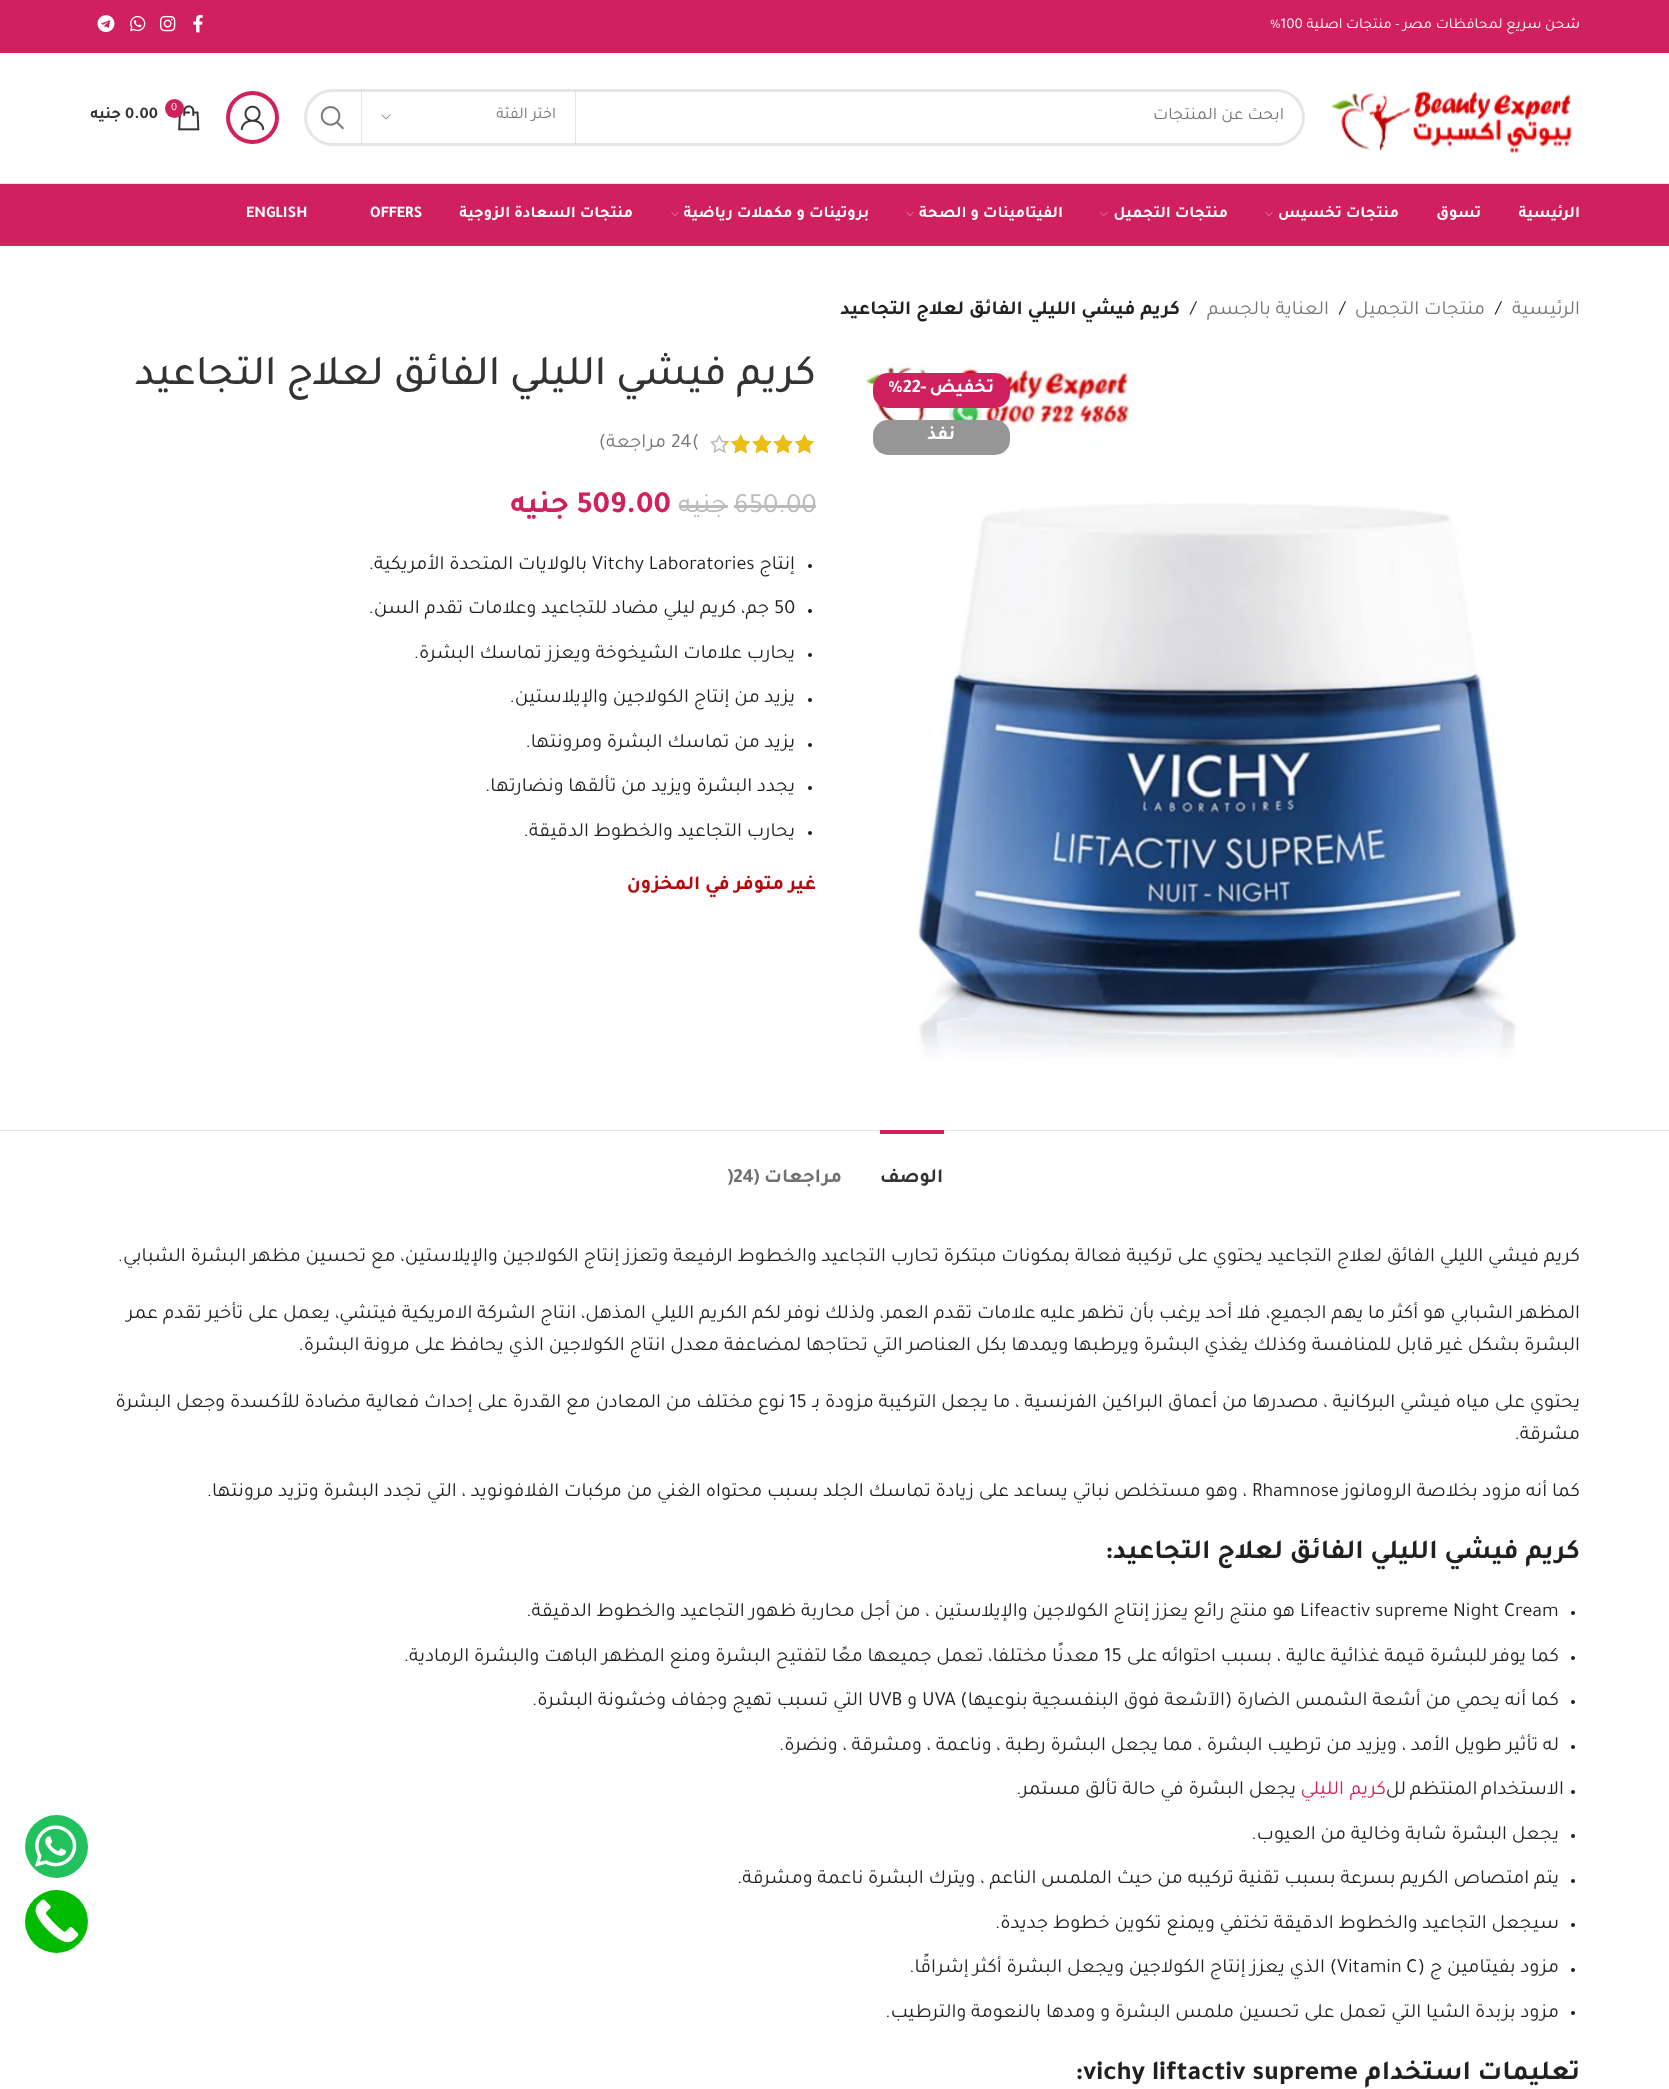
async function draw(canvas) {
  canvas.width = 1669
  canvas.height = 2089
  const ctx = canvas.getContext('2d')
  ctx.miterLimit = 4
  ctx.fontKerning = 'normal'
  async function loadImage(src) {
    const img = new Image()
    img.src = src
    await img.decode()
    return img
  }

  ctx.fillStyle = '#fff'
  ctx.fillRect(0, 0, 1669, 2089)
  ctx.fillStyle = '#d0205e'
  ctx.fillRect(0, 0, 1669, 53)
  ctx.direction = 'rtl'
  ctx.font = '15px Tajawal'
  ctx.fillStyle = '#fff'
  ctx.fillText('شحن سريع لمحافظات مصر - منتجات اصلية', 1580, 28)
  ctx.direction = 'ltr'
  ctx.fillText('%100', 1270, 28)
  ctx.drawImage(await loadImage('image0.png'), 193, 14, 10, 19)
  ctx.drawImage(await loadImage('image1.png'), 160, 15, 16, 17)
  ctx.drawImage(await loadImage('image2.png'), 130, 15, 16, 17)
  ctx.drawImage(await loadImage('image3.png'), 97, 15, 18, 18)
  ctx.fillStyle = '#e6e6e6'
  ctx.fillRect(0, 183, 1669, 1)
  ctx.drawImage(await loadImage('image4.png'), 1331, 90, 241, 64)
  ctx.beginPath()
  ctx.roundRect(305.5, 90.5, 998, 54, 27)
  ctx.strokeStyle = '#e6e6e6'
  ctx.lineWidth = 3
  ctx.stroke()
  ctx.save()
  ctx.beginPath()
  ctx.rect(616, 108, 668, 21)
  ctx.clip()
  ctx.direction = 'rtl'
  ctx.font = '17.5px Tajawal'
  ctx.fillStyle = '#767676'
  ctx.fillText('ابحث عن المنتجات', 1284, 119)
  ctx.restore()
  ctx.fillStyle = '#0000001a'
  ctx.fillRect(575, 91, 1, 53)
  ctx.fillRect(361, 91, 1, 53)
  ctx.direction = 'rtl'
  ctx.font = '16.25px Tajawal'
  ctx.fillStyle = '#767676'
  ctx.fillText('اختر الفئة', 556, 118)
  ctx.drawImage(await loadImage('image5.png'), 381, 114, 10, 6)
  ctx.drawImage(await loadImage('image6.png'), 320, 106, 24, 24)
  ctx.fillStyle = '#d0205e'
  ctx.beginPath()
  ctx.arc(252.5, 117.5, 26.5, 0, 2 * Math.PI)
  ctx.fill()
  ctx.fillStyle = '#fff'
  ctx.beginPath()
  ctx.arc(252.5, 117.5, 22.5, 0, 2 * Math.PI)
  ctx.fill()
  ctx.drawImage(await loadImage('image7.png'), 240, 105, 25, 25)
  ctx.drawImage(await loadImage('image8.png'), 178, 105, 22, 26)
  ctx.fillStyle = '#d0205e'
  ctx.beginPath()
  ctx.arc(174.5, 108.5, 9.5, 0, 2 * Math.PI)
  ctx.fill()
  ctx.direction = 'ltr'
  ctx.font = '11px Tajawal'
  ctx.fillStyle = '#fff'
  ctx.fillText('0', 171, 110)
  ctx.font = 'bold 16.25px Tajawal'
  ctx.fillStyle = '#333'
  ctx.fillText('0.00', 125, 118)
  ctx.direction = 'rtl'
  ctx.fillText('جنيه', 121, 118)
  ctx.fillStyle = '#d0205e'
  ctx.fillRect(0, 184, 1669, 62)
  ctx.fillStyle = '#fff'
  ctx.fillText('الرئيسية', 1580, 217)
  ctx.fillText('تسوق', 1481, 217)
  ctx.fillText('منتجات تخسيس', 1399, 217)
  ctx.drawImage(await loadImage('image9.png'), 1265, 212, 8, 4)
  ctx.fillText('منتجات التجميل', 1228, 217)
  ctx.drawImage(await loadImage('image9.png'), 1100, 212, 8, 4)
  ctx.fillText('الفيتامينات و الصحة', 1063, 217)
  ctx.drawImage(await loadImage('image10.png'), 906, 212, 8, 4)
  ctx.fillText('بروتينات و مكملات رياضية', 869, 217)
  ctx.drawImage(await loadImage('image10.png'), 671, 212, 8, 4)
  ctx.fillText('منتجات السعادة الزوجية', 633, 217)
  ctx.direction = 'ltr'
  ctx.fillText('OFFERS', 370, 217)
  ctx.fillText('ENGLISH', 246, 217)
  ctx.direction = 'rtl'
  ctx.font = '20px Tajawal'
  ctx.fillStyle = '#767676'
  ctx.fillText('الرئيسية', 1580, 314)
  ctx.direction = 'ltr'
  ctx.fillStyle = '#212121'
  ctx.fillText('/', 1495, 314)
  ctx.direction = 'rtl'
  ctx.fillStyle = '#767676'
  ctx.fillText('منتجات التجميل', 1485, 314)
  ctx.direction = 'ltr'
  ctx.fillStyle = '#212121'
  ctx.fillText('/', 1339, 314)
  ctx.direction = 'rtl'
  ctx.fillStyle = '#767676'
  ctx.fillText('العناية بالجسم', 1329, 314)
  ctx.direction = 'ltr'
  ctx.fillStyle = '#212121'
  ctx.fillText('/', 1190, 314)
  ctx.direction = 'rtl'
  ctx.font = 'bold 20px Tajawal'
  ctx.fillText('كريم فيشي الليلي الفائق لعلاج التجاعيد', 1180, 314)
  ctx.drawImage(await loadImage('image11.png'), 863, 363, 654, 696)
  ctx.fillStyle = '#d0205e'
  ctx.beginPath()
  ctx.roundRect(873, 373, 137, 35, 15)
  ctx.fill()
  ctx.font = 'bold 19px Tajawal'
  ctx.fillStyle = '#fff'
  ctx.fillText('تخفيض', 994, 392)
  ctx.direction = 'ltr'
  ctx.fillText('%22-', 888, 392)
  ctx.fillStyle = '#969696'
  ctx.beginPath()
  ctx.roundRect(873, 420, 137, 35, 15)
  ctx.fill()
  ctx.direction = 'rtl'
  ctx.fillStyle = '#fff'
  ctx.fillText('نفذ', 955, 439)
  ctx.font = '500 42.5px Tajawal'
  ctx.fillStyle = '#333'
  ctx.fillText('كريم فيشي الليلي الفائق لعلاج التجاعيد', 816, 384)
  ctx.drawImage(await loadImage('image12.png'), 710, 434, 104, 19)
  ctx.drawImage(await loadImage('image13.png'), 725, 434, 89, 20)
  ctx.drawImage(await loadImage('image14.png'), 725, 434, 89, 20)
  ctx.direction = 'ltr'
  ctx.font = '20px Tajawal'
  ctx.fillStyle = '#767676'
  ctx.fillText('(', 692, 447)
  ctx.fillText('24', 671, 447)
  ctx.direction = 'rtl'
  ctx.fillText('مراجعة)', 666, 447)
  ctx.direction = 'ltr'
  ctx.font = '28px Tajawal'
  ctx.fillStyle = '#bbb'
  ctx.fillText('650.00', 734, 512)
  ctx.fillRect(734, 505, 82, 3)
  ctx.direction = 'rtl'
  ctx.fillText('جنيه', 727, 512)
  ctx.fillRect(679, 505, 49, 3)
  ctx.direction = 'ltr'
  ctx.font = 'bold 31px Tajawal'
  ctx.fillStyle = '#d0205e'
  ctx.fillText('509.00', 577, 512)
  ctx.direction = 'rtl'
  ctx.fillText('جنيه', 569, 512)
  ctx.fillStyle = '#212121'
  ctx.beginPath()
  ctx.arc(810, 566, 2, 0, 2 * Math.PI)
  ctx.fill()
  ctx.font = '20px Tajawal'
  ctx.fillText('إنتاج', 795, 569)
  ctx.direction = 'ltr'
  ctx.fillText('Vitchy Laboratories', 592, 569)
  ctx.direction = 'rtl'
  ctx.fillText('بالولايات المتحدة الأمريكية.', 587, 569)
  ctx.beginPath()
  ctx.arc(810, 611, 2, 0, 2 * Math.PI)
  ctx.fill()
  ctx.direction = 'ltr'
  ctx.fillText('50', 774, 613)
  ctx.direction = 'rtl'
  ctx.fillText('جم، كريم ليلي مضاد للتجاعيد وعلامات تقدم السن.', 769, 613)
  ctx.beginPath()
  ctx.arc(810, 655, 2, 0, 2 * Math.PI)
  ctx.fill()
  ctx.fillText('يحارب علامات الشيخوخة ويعزز تماسك البشرة.', 795, 658)
  ctx.beginPath()
  ctx.arc(810, 700, 2, 0, 2 * Math.PI)
  ctx.fill()
  ctx.fillText('يزيد من إنتاج الكولاجين والإيلاستين.', 795, 702)
  ctx.beginPath()
  ctx.arc(810, 745, 2, 0, 2 * Math.PI)
  ctx.fill()
  ctx.fillText('يزيد من تماسك البشرة ومرونتها.', 795, 747)
  ctx.beginPath()
  ctx.arc(810, 788, 2, 0, 2 * Math.PI)
  ctx.fill()
  ctx.fillText('يجدد البشرة ويزيد من تألقها ونضارتها.', 795, 791)
  ctx.beginPath()
  ctx.arc(810, 833, 2, 0, 2 * Math.PI)
  ctx.fill()
  ctx.fillText('يحارب التجاعيد والخطوط الدقيقة.', 795, 836)
  ctx.font = 'bold 20px Tajawal'
  ctx.fillStyle = '#b50808'
  ctx.fillText('غير متوفر في المخزون', 816, 889)
  ctx.fillStyle = '#e4e4e4'
  ctx.fillRect(0, 1130, 1669, 1)
  ctx.fillStyle = '#d0205e'
  ctx.fillRect(880, 1130, 64, 4)
  ctx.fillStyle = '#333'
  ctx.fillText('الوصف', 943, 1182)
  ctx.fillStyle = '#707070'
  ctx.fillText('مراجعات (', 842, 1182)
  ctx.direction = 'ltr'
  ctx.fillText(')24', 727, 1182)
  ctx.direction = 'rtl'
  ctx.font = '20px Tajawal'
  ctx.fillStyle = '#212121'
  ctx.fillText('كريم فيشي الليلي الفائق لعلاج التجاعيد يحتوي على تركيبة فعالة بمكونات مبتكرة تحارب التجاعيد والخطوط الرفيعة وتعزز إنتاج الكولاجين والإيلاستين، مع تحسين مظهر البشرة الشبابي.', 1580, 1261)
  ctx.fillText('المظهر الشبابي هو أكثر ما يهم الجميع، فلا أحد يرغب بأن تظهر عليه علامات تقدم العمر، ولذلك نوفر لكم الكريم الليلي المذهل، انتاج الشركة الامريكية فيتشي، يعمل على تأخير تقدم عمر', 1580, 1318)
  ctx.fillText('البشرة بشكل غير قابل للمنافسة وكذلك يغذي البشرة ويرطبها ويمدها بكل العناصر التي تحتاجها لمضاعفة معدل انتاج الكولاجين الذي يحافظ على مرونة البشرة.', 1580, 1350)
  ctx.fillText('يحتوي على مياه فيشي البركانية ، مصدرها من أعماق البراكين الفرنسية ، ما يجعل التركيبة مزودة بـ', 1580, 1407)
  ctx.direction = 'ltr'
  ctx.fillText('15', 789, 1407)
  ctx.direction = 'rtl'
  ctx.fillText('نوع مختلف من المعادن مع القدرة على إحداث فعالية مضادة للأكسدة وجعل البشرة', 785, 1407)
  ctx.fillText('مشرقة.', 1580, 1439)
  ctx.fillText('كما أنه مزود بخلاصة الرومانوز', 1580, 1496)
  ctx.direction = 'ltr'
  ctx.fillText('Rhamnose', 1252, 1496)
  ctx.direction = 'rtl'
  ctx.fillText('، وهو مستخلص نباتي يساعد على زيادة تماسك الجلد بسبب محتواه الغني من مركبات الفلافونويد ، التي تجدد البشرة وتزيد مرونتها.', 1247, 1496)
  ctx.font = 'bold 27.5px Tajawal'
  ctx.fillText('كريم فيشي الليلي الفائق لعلاج التجاعيد:', 1580, 1558)
  ctx.beginPath()
  ctx.arc(1573, 1613, 2, 0, 2 * Math.PI)
  ctx.fill()
  ctx.direction = 'ltr'
  ctx.font = '20px Tajawal'
  ctx.fillText('Lifeactiv supreme Night Cream', 1300, 1616)
  ctx.direction = 'rtl'
  ctx.fillText('هو منتج رائع يعزز إنتاج الكولاجين والإيلاستين ، من أجل محاربة ظهور التجاعيد والخطوط الدقيقة.', 1295, 1616)
  ctx.beginPath()
  ctx.arc(1573, 1658, 2, 0, 2 * Math.PI)
  ctx.fill()
  ctx.fillText('كما يوفر للبشرة قيمة غذائية عالية ، بسبب احتوائه على', 1559, 1661)
  ctx.direction = 'ltr'
  ctx.fillText('15', 1104, 1661)
  ctx.direction = 'rtl'
  ctx.fillText('معدنًا مختلفا، تعمل جميعها معًا لتفتيح البشرة ومنع المظهر الباهت والبشرة الرمادية.', 1099, 1661)
  ctx.beginPath()
  ctx.arc(1573, 1702, 2, 0, 2 * Math.PI)
  ctx.fill()
  ctx.fillText('كما أنه يحمي من أشعة الشمس الضارة (الآشعة فوق البنفسجية بنوعيها)', 1559, 1705)
  ctx.direction = 'ltr'
  ctx.fillText('UVA', 922, 1705)
  ctx.direction = 'rtl'
  ctx.fillText('و', 917, 1705)
  ctx.direction = 'ltr'
  ctx.fillText('UVB', 868, 1705)
  ctx.direction = 'rtl'
  ctx.fillText('التي تسبب تهيج وجفاف وخشونة البشرة.', 863, 1705)
  ctx.beginPath()
  ctx.arc(1573, 1747, 2, 0, 2 * Math.PI)
  ctx.fill()
  ctx.fillText('له تأثير طويل الأمد ، ويزيد من ترطيب البشرة ، مما يجعل البشرة رطبة ، وناعمة ، ومشرقة ، ونضرة.', 1559, 1750)
  ctx.beginPath()
  ctx.arc(1573, 1792, 2, 0, 2 * Math.PI)
  ctx.fill()
  ctx.wordSpacing = '-1px'
  ctx.fillText('الاستخدام المنتظم لل', 1564, 1794)
  ctx.wordSpacing = '1px'
  ctx.fillStyle = '#d0205e'
  ctx.fillText('كريم الليلي', 1386, 1794)
  ctx.wordSpacing = '0px'
  ctx.fillStyle = '#212121'
  ctx.fillText('يجعل البشرة في حالة تألق مستمر.', 1296, 1794)
  ctx.beginPath()
  ctx.arc(1573, 1836, 2, 0, 2 * Math.PI)
  ctx.fill()
  ctx.fillText('يجعل البشرة شابة وخالية من العيوب.', 1559, 1839)
  ctx.beginPath()
  ctx.arc(1573, 1881, 2, 0, 2 * Math.PI)
  ctx.fill()
  ctx.fillText('يتم امتصاص الكريم بسرعة بسبب تقنية تركيبه من حيث الملمس الناعم ، ويترك البشرة ناعمة ومشرقة.', 1559, 1883)
  ctx.beginPath()
  ctx.arc(1573, 1925, 2, 0, 2 * Math.PI)
  ctx.fill()
  ctx.fillText('سيجعل التجاعيد والخطوط الدقيقة تختفي ويمنع تكوين خطوط جديدة.', 1559, 1928)
  ctx.beginPath()
  ctx.arc(1573, 1970, 2, 0, 2 * Math.PI)
  ctx.fill()
  ctx.fillText('مزود بفيتامين ج (', 1559, 1972)
  ctx.direction = 'ltr'
  ctx.fillText('Vitamin C', 1337, 1972)
  ctx.direction = 'rtl'
  ctx.fillText(') الذي يعزز إنتاج الكولاجين ويجعل البشرة أكثر إشراقًا.', 1337, 1972)
  ctx.beginPath()
  ctx.arc(1573, 2013, 2, 0, 2 * Math.PI)
  ctx.fill()
  ctx.fillText('مزود بزبدة الشيا التي تعمل على تحسين ملمس البشرة و ومدها بالنعومة والترطيب.', 1559, 2017)
  ctx.font = 'bold 27.5px Tajawal'
  ctx.fillText('تعليمات استخدام', 1580, 2079)
  ctx.direction = 'ltr'
  ctx.fillText(':vichy liftactiv supreme', 1075, 2079)
  ctx.fillStyle = '#22c15e'
  ctx.beginPath()
  ctx.arc(56.5, 1846.5, 31.5, 0, 2 * Math.PI)
  ctx.fill()
  ctx.drawImage(await loadImage('image15.png'), 35, 1825, 42, 42)
  ctx.fillStyle = '#0b0'
  ctx.beginPath()
  ctx.arc(56.5, 1921.5, 31.5, 0, 2 * Math.PI)
  ctx.fill()
  ctx.drawImage(await loadImage('image16.png'), 35, 1899, 44, 44)
}

draw(document.querySelector('canvas'))
